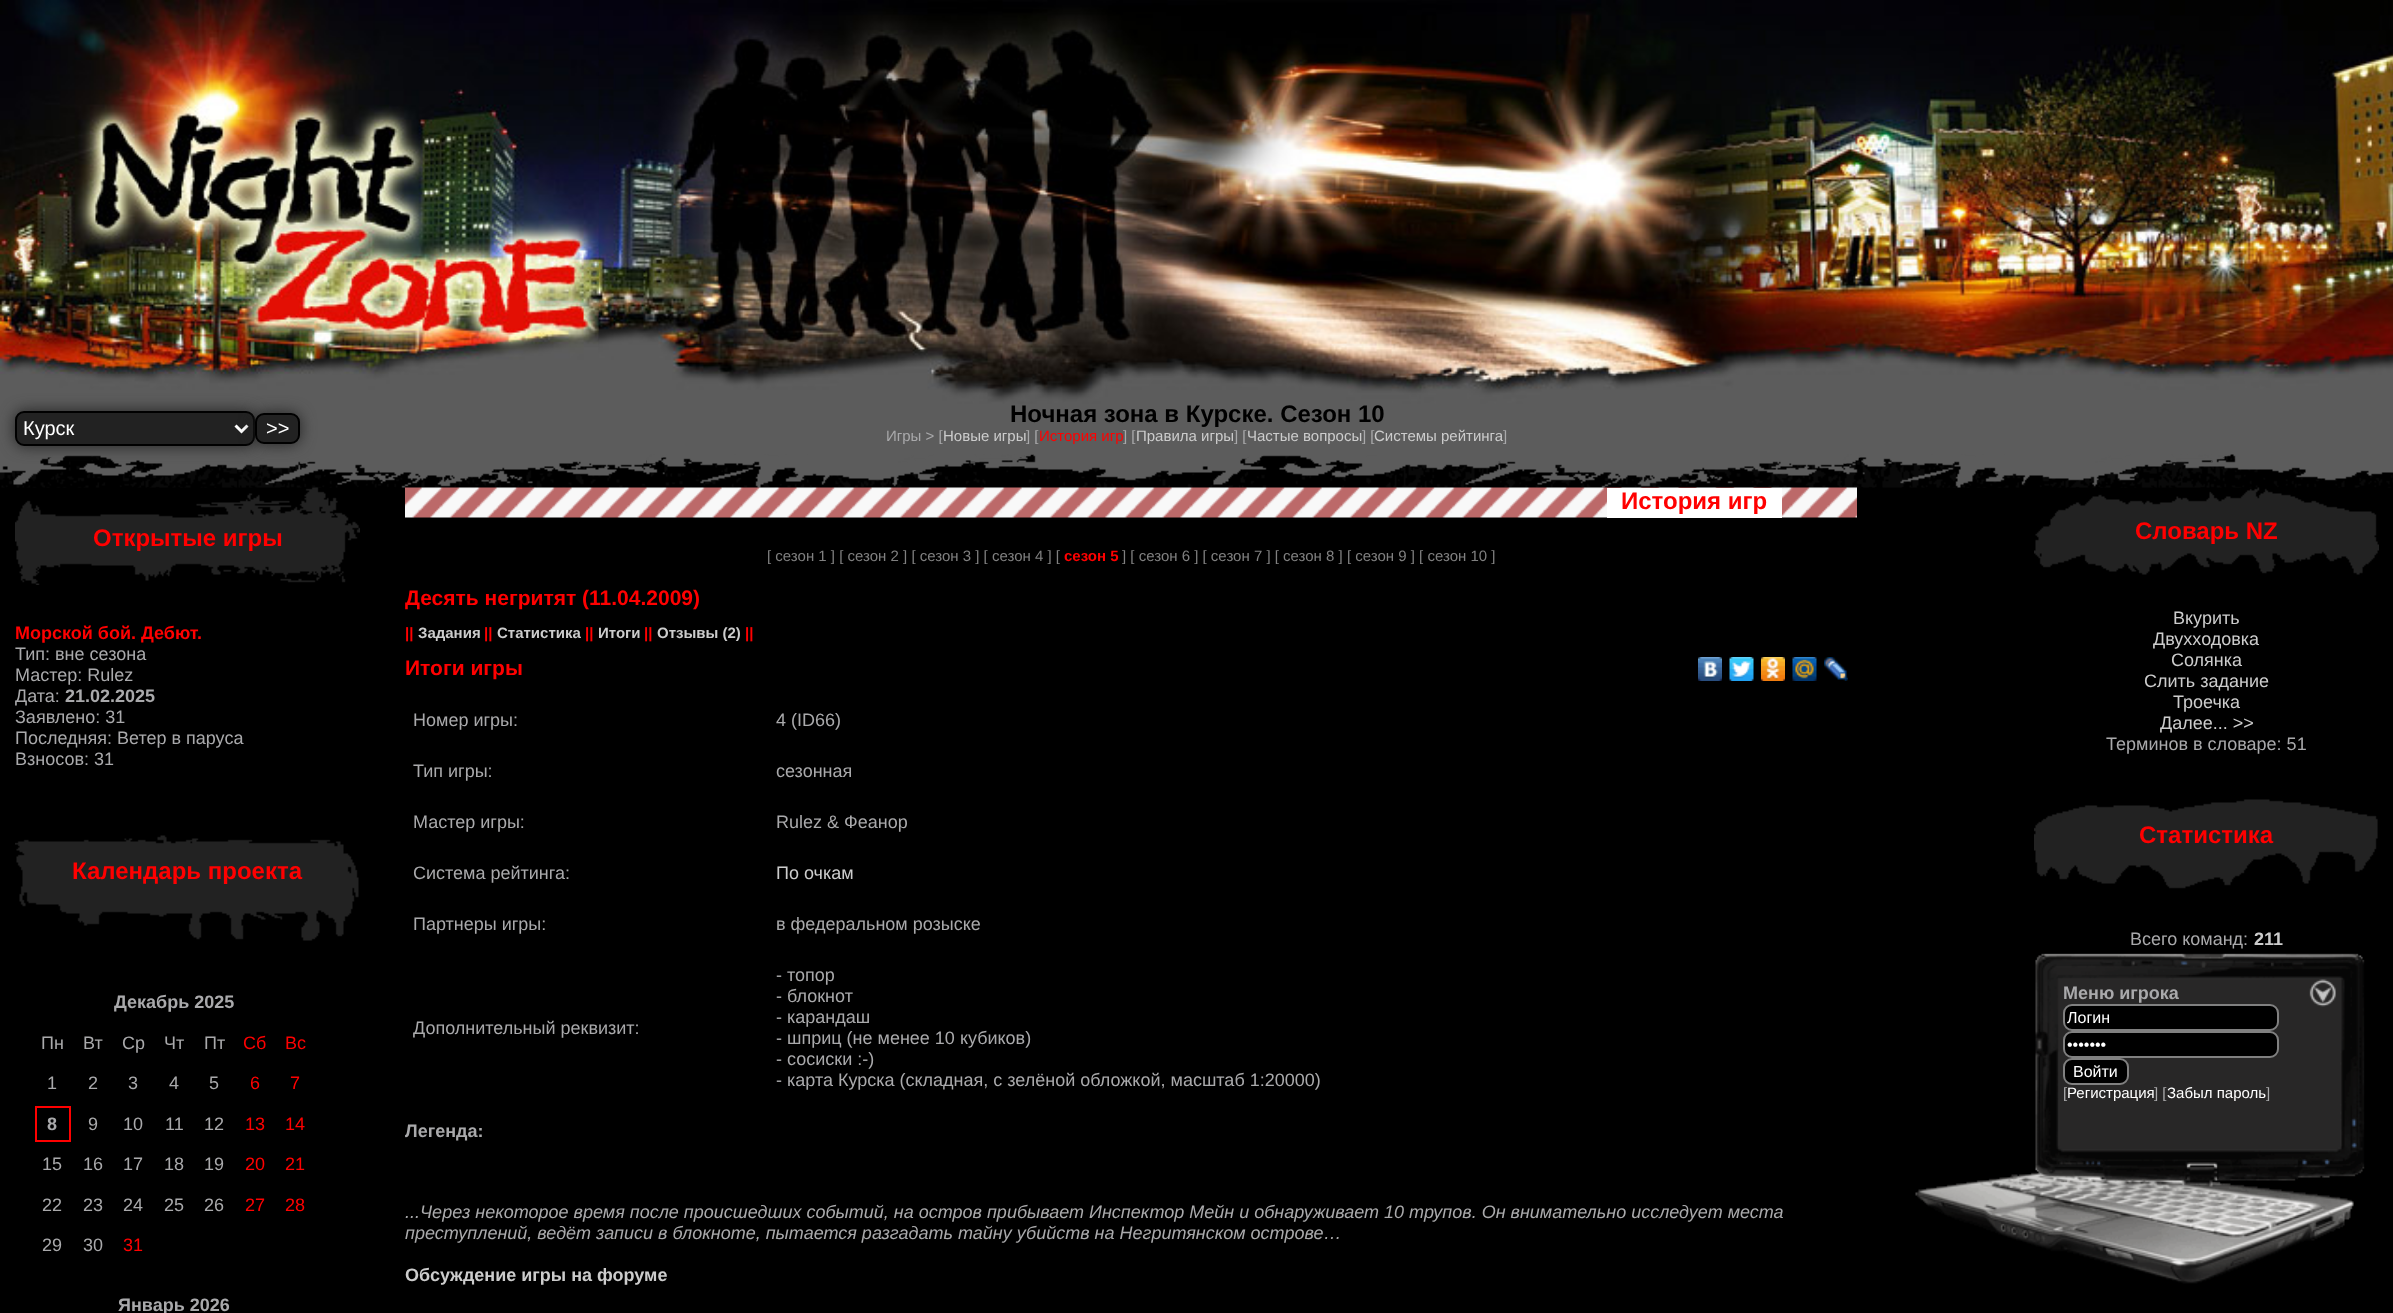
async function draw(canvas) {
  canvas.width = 2393
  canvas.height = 1313
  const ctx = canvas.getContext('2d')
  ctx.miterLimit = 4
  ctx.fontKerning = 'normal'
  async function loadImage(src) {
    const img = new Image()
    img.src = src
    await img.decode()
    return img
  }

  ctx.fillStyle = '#000'
  ctx.fillRect(0, 0, 2393, 1313)
  ctx.drawImage(await loadImage('image0.png'), 0, 0, 2393, 411)
  ctx.drawImage(await loadImage('image1.png'), 0, 0, 599, 374)
  ctx.drawImage(await loadImage('image3.png'), 0, 453, 2393, 35)
  ctx.drawImage(await loadImage('image2.png'), 47, 455, 262, 9)
  ctx.fillStyle = '#5c5c5c'
  ctx.fillRect(0, 411, 2393, 42)
  ctx.font = 'bold 24px Liberation Sans'
  ctx.fillStyle = '#000'
  ctx.fillText('Ночная зона в Курске. Сезон 10', 1010, 422)
  ctx.font = '15px Liberation Sans'
  ctx.fillStyle = '#a9a9ab'
  ctx.fillText('Игры > [', 886, 441)
  ctx.fillStyle = '#ccc'
  ctx.fillText('Новые игры', 943, 441)
  ctx.fillStyle = '#a9a9ab'
  ctx.fillText('] [', 1026, 441)
  ctx.fillStyle = '#f00'
  ctx.fillText('История игр', 1039, 441)
  ctx.fillStyle = '#a9a9ab'
  ctx.fillText('] [', 1123, 441)
  ctx.fillStyle = '#ccc'
  ctx.fillText('Правила игры', 1136, 441)
  ctx.fillStyle = '#a9a9ab'
  ctx.fillText('] [', 1234, 441)
  ctx.fillStyle = '#ccc'
  ctx.fillText('Частые вопросы', 1247, 441)
  ctx.fillStyle = '#a9a9ab'
  ctx.fillText('] [', 1362, 441)
  ctx.fillStyle = '#ccc'
  ctx.fillText('Системы рейтинга', 1374, 441)
  ctx.fillStyle = '#a9a9ab'
  ctx.fillText(']', 1503, 441)
  ctx.drawImage(await loadImage('image4.png'), 15, 487, 345, 98)
  ctx.font = 'bold 24px Liberation Sans'
  ctx.fillStyle = '#f00'
  ctx.fillText('Открытые игры', 93, 546)
  ctx.font = 'bold 18px Liberation Sans'
  ctx.fillText('Морской бой. Дебют.', 15, 639)
  ctx.font = '18px Liberation Sans'
  ctx.fillStyle = '#a9a9ab'
  ctx.fillText('Тип: вне сезона', 15, 660)
  ctx.fillText('Мастер: Rulez', 15, 681)
  ctx.fillText('Дата:', 15, 702)
  ctx.font = 'bold 18px Liberation Sans'
  ctx.fillText('21.02.2025', 65, 702)
  ctx.font = '18px Liberation Sans'
  ctx.fillText('Заявлено: 31', 15, 723)
  ctx.fillText('Последняя: Ветер в паруса', 15, 744)
  ctx.fillText('Взносов: 31', 15, 765)
  ctx.drawImage(await loadImage('image5.png'), 15, 835, 344, 106)
  ctx.font = 'bold 24px Liberation Sans'
  ctx.fillStyle = '#f00'
  ctx.fillText('Календарь проекта', 72, 879)
  ctx.font = 'bold 18px Liberation Sans'
  ctx.fillStyle = '#a9a9ab'
  ctx.fillText('Декабрь 2025', 114, 1008)
  ctx.font = '18px Liberation Sans'
  ctx.fillText('Пн', 41, 1049)
  ctx.fillText('Вт', 83, 1049)
  ctx.fillText('Ср', 122, 1049)
  ctx.fillText('Чт', 164, 1049)
  ctx.fillText('Пт', 204, 1049)
  ctx.fillStyle = '#f00'
  ctx.fillText('Сб', 243, 1049)
  ctx.fillText('Вс', 285, 1049)
  ctx.fillStyle = '#a9a9ab'
  ctx.fillText('1', 47, 1089)
  ctx.fillText('2', 88, 1089)
  ctx.fillText('3', 128, 1089)
  ctx.fillText('4', 169, 1089)
  ctx.fillText('5', 209, 1089)
  ctx.fillStyle = '#f00'
  ctx.fillText('6', 250, 1089)
  ctx.fillText('7', 290, 1089)
  ctx.strokeStyle = '#f00'
  ctx.lineWidth = 2
  ctx.strokeRect(36, 1107, 34, 34)
  ctx.font = 'bold 18px Liberation Sans'
  ctx.fillStyle = '#a9a9ab'
  ctx.fillText('8', 47, 1130)
  ctx.font = '18px Liberation Sans'
  ctx.fillText('9', 88, 1130)
  ctx.fillText('10', 123, 1130)
  ctx.fillText('11', 165, 1130)
  ctx.fillText('12', 204, 1130)
  ctx.fillStyle = '#f00'
  ctx.fillText('13', 245, 1130)
  ctx.fillText('14', 285, 1130)
  ctx.fillStyle = '#a9a9ab'
  ctx.fillText('15', 42, 1170)
  ctx.fillText('16', 83, 1170)
  ctx.fillText('17', 123, 1170)
  ctx.fillText('18', 164, 1170)
  ctx.fillText('19', 204, 1170)
  ctx.fillStyle = '#f00'
  ctx.fillText('20', 245, 1170)
  ctx.fillText('21', 285, 1170)
  ctx.fillStyle = '#a9a9ab'
  ctx.fillText('22', 42, 1211)
  ctx.fillText('23', 83, 1211)
  ctx.fillText('24', 123, 1211)
  ctx.fillText('25', 164, 1211)
  ctx.fillText('26', 204, 1211)
  ctx.fillStyle = '#f00'
  ctx.fillText('27', 245, 1211)
  ctx.fillText('28', 285, 1211)
  ctx.fillStyle = '#a9a9ab'
  ctx.fillText('29', 42, 1251)
  ctx.fillText('30', 83, 1251)
  ctx.fillStyle = '#f00'
  ctx.fillText('31', 123, 1251)
  ctx.font = 'bold 18px Liberation Sans'
  ctx.fillStyle = '#a9a9ab'
  ctx.fillText('Январь 2026', 118, 1311)
  ctx.drawImage(await loadImage('image6.png'), 405, 487, 1452, 31)
  ctx.fillStyle = '#fff'
  ctx.fillRect(1607, 488, 175, 30)
  ctx.font = 'bold 24px Liberation Sans'
  ctx.fillStyle = '#f00'
  ctx.fillText('История игр', 1621, 509)
  ctx.font = '15px Liberation Sans'
  ctx.fillStyle = '#808080'
  ctx.fillText('[ сезон 1 ] [ сезон 2 ] [ сезон 3 ] [ сезон 4 ] [', 767, 561)
  ctx.font = 'bold 15px Liberation Sans'
  ctx.fillStyle = '#f00'
  ctx.fillText('сезон 5', 1064, 561)
  ctx.font = '15px Liberation Sans'
  ctx.fillStyle = '#808080'
  ctx.fillText('] [ сезон 6 ] [ сезон 7 ] [ сезон 8 ] [ сезон 9 ] [ сезон 10 ]', 1122, 561)
  ctx.font = 'bold 21px Liberation Sans'
  ctx.fillStyle = '#f00'
  ctx.fillText('Десять негритят (11.04.2009)', 405, 605)
  ctx.font = 'bold 15px Liberation Sans'
  ctx.fillText('||', 405, 638)
  ctx.fillStyle = '#ccc'
  ctx.fillText('Задания', 418, 638)
  ctx.fillStyle = '#f00'
  ctx.fillText('||', 484, 638)
  ctx.fillStyle = '#ccc'
  ctx.fillText('Статистика', 497, 638)
  ctx.fillStyle = '#f00'
  ctx.fillText('||', 585, 638)
  ctx.fillStyle = '#ccc'
  ctx.fillText('Итоги', 598, 638)
  ctx.fillStyle = '#f00'
  ctx.fillText('||', 644, 638)
  ctx.fillStyle = '#ccc'
  ctx.fillText('Отзывы (2)', 657, 638)
  ctx.fillStyle = '#f00'
  ctx.fillText('||', 745, 638)
  ctx.font = 'bold 21px Liberation Sans'
  ctx.fillText('Итоги игры', 405, 675)
  ctx.drawImage(await loadImage('image7.png'), 1698, 657, 24, 24)
  ctx.drawImage(await loadImage('image8.png'), 1729, 657, 25, 24)
  ctx.drawImage(await loadImage('image9.png'), 1761, 657, 24, 24)
  ctx.drawImage(await loadImage('image10.png'), 1792, 657, 25, 24)
  ctx.drawImage(await loadImage('image11.png'), 1824, 657, 24, 24)
  ctx.font = '18px Liberation Sans'
  ctx.fillStyle = '#a9a9ab'
  ctx.fillText('Номер игры:', 413, 726)
  ctx.fillText('4 (ID66)', 776, 726)
  ctx.fillText('Тип игры:', 413, 777)
  ctx.fillText('сезонная', 776, 777)
  ctx.fillText('Мастер игры:', 413, 828)
  ctx.fillText('Rulez & Феанор', 776, 828)
  ctx.fillText('Система рейтинга:', 413, 879)
  ctx.fillStyle = '#ccc'
  ctx.fillText('По очкам', 776, 879)
  ctx.fillStyle = '#a9a9ab'
  ctx.fillText('Партнеры игры:', 413, 930)
  ctx.fillText('в федеральном розыске', 776, 930)
  ctx.fillText('Дополнительный реквизит:', 413, 1034)
  ctx.fillText('- топор', 776, 981)
  ctx.fillText('- блокнот', 776, 1002)
  ctx.fillText('- карандаш', 776, 1023)
  ctx.fillText('- шприц (не менее 10 кубиков)', 776, 1044)
  ctx.fillText('- сосиски :-)', 776, 1065)
  ctx.fillText('- карта Курска (складная, с зелёной обложкой, масштаб 1:20000)', 776, 1086)
  ctx.font = 'bold 18px Liberation Sans'
  ctx.fillText('Легенда:', 405, 1137)
  ctx.font = 'italic 18px Liberation Sans'
  ctx.fillText('...Через некоторое время после происшедших событий, на остров прибывает Инспектор Мейн и обнаруживает 10 трупов. Он внимательно исследует места', 405, 1218)
  ctx.fillText('преступлений, ведёт записи в блокноте, пытается разгадать тайну убийств на Негритянском острове…', 405, 1239)
  ctx.font = 'bold 18px Liberation Sans'
  ctx.fillStyle = '#ccc'
  ctx.fillText('Обсуждение игры на форуме', 405, 1281)
  ctx.drawImage(await loadImage('image12.png'), 2034, 487, 345, 88)
  ctx.font = 'bold 24px Liberation Sans'
  ctx.fillStyle = '#f00'
  ctx.fillText('Словарь NZ', 2135, 539)
  ctx.font = '18px Liberation Sans'
  ctx.fillStyle = '#ccc'
  ctx.fillText('Вкурить', 2173, 624)
  ctx.fillText('Двухходовка', 2153, 645)
  ctx.fillText('Солянка', 2171, 666)
  ctx.fillText('Слить задание', 2144, 687)
  ctx.fillText('Троечка', 2173, 708)
  ctx.fillText('Далее... >>', 2160, 729)
  ctx.fillStyle = '#a9a9ab'
  ctx.fillText('Терминов в словаре: 51', 2106, 750)
  ctx.drawImage(await loadImage('image13.png'), 2034, 799, 344, 90)
  ctx.font = 'bold 24px Liberation Sans'
  ctx.fillStyle = '#f00'
  ctx.fillText('Статистика', 2139, 843)
  ctx.font = '18px Liberation Sans'
  ctx.fillStyle = '#a9a9ab'
  ctx.fillText('Всего команд:', 2130, 945)
  ctx.font = 'bold 18px Liberation Sans'
  ctx.fillStyle = '#ccc'
  ctx.fillText('211', 2254, 945)
  ctx.drawImage(await loadImage('image14.png'), 1915, 953, 450, 331)
  ctx.fillStyle = '#a9a9ab'
  ctx.fillText('Меню игрока', 2063, 999)
  ctx.drawImage(await loadImage('image15.png'), 2309, 979, 27, 28)
  ctx.fillStyle = '#000'
  ctx.beginPath()
  ctx.roundRect(2064, 1005, 214, 25, 8)
  ctx.fill()
  ctx.strokeStyle = '#808080'
  ctx.stroke()
  ctx.font = '16px Liberation Sans'
  ctx.fillStyle = '#fff'
  ctx.fillText('Логин', 2067, 1023)
  ctx.fillStyle = '#000'
  ctx.beginPath()
  ctx.roundRect(2064, 1032, 214, 25, 8)
  ctx.fill()
  ctx.stroke()
  ctx.fillStyle = '#fff'
  ctx.fillText('•••••••', 2067, 1050)
  ctx.fillStyle = '#000'
  ctx.beginPath()
  ctx.roundRect(2064, 1059, 64, 25, 8)
  ctx.fill()
  ctx.stroke()
  ctx.fillStyle = '#fff'
  ctx.fillText('Войти', 2073, 1077)
  ctx.font = '15px Liberation Sans'
  ctx.fillStyle = '#a9a9ab'
  ctx.fillText('[', 2063, 1098)
  ctx.fillStyle = '#fff'
  ctx.fillText('Регистрация', 2067, 1098)
  ctx.fillStyle = '#a9a9ab'
  ctx.fillText('] [', 2154, 1098)
  ctx.fillStyle = '#fff'
  ctx.fillText('Забыл пароль', 2167, 1098)
  ctx.fillStyle = '#a9a9ab'
  ctx.fillText(']', 2266, 1098)
  ctx.fillStyle = '#222'
  ctx.filter = 'blur(7.5px)'
  ctx.beginPath()
  ctx.roundRect(15, 411, 240, 35, 9)
  ctx.fill()
  ctx.filter = 'none'
  ctx.beginPath()
  ctx.roundRect(16, 412, 238, 33, 8)
  ctx.fill()
  ctx.strokeStyle = '#000'
  ctx.stroke()
  ctx.beginPath()
  ctx.moveTo(235.5, 425.5)
  ctx.lineTo(241.5, 431.5)
  ctx.lineTo(247.5, 425.5)
  ctx.strokeStyle = '#fff'
  ctx.lineWidth = 3
  ctx.stroke()
  ctx.font = '20px Liberation Sans'
  ctx.fillStyle = '#fff'
  ctx.fillText('Курск', 23, 435)
  ctx.fillStyle = '#222'
  ctx.filter = 'blur(7.5px)'
  ctx.beginPath()
  ctx.roundRect(255, 413, 45, 31, 9)
  ctx.fill()
  ctx.filter = 'none'
  ctx.beginPath()
  ctx.roundRect(256, 414, 43, 29, 8)
  ctx.fill()
  ctx.strokeStyle = '#000'
  ctx.lineWidth = 2
  ctx.stroke()
  ctx.fillStyle = '#fff'
  ctx.fillText('>>', 266, 435)
  ctx.drawImage(await loadImage('image16.png'), 646, 454, 388, 10)
  ctx.drawImage(await loadImage('image17.png'), 1244, 455, 257, 9)
  ctx.drawImage(await loadImage('image18.png'), 1843, 454, 388, 10)
}

draw(document.querySelector('canvas'))
